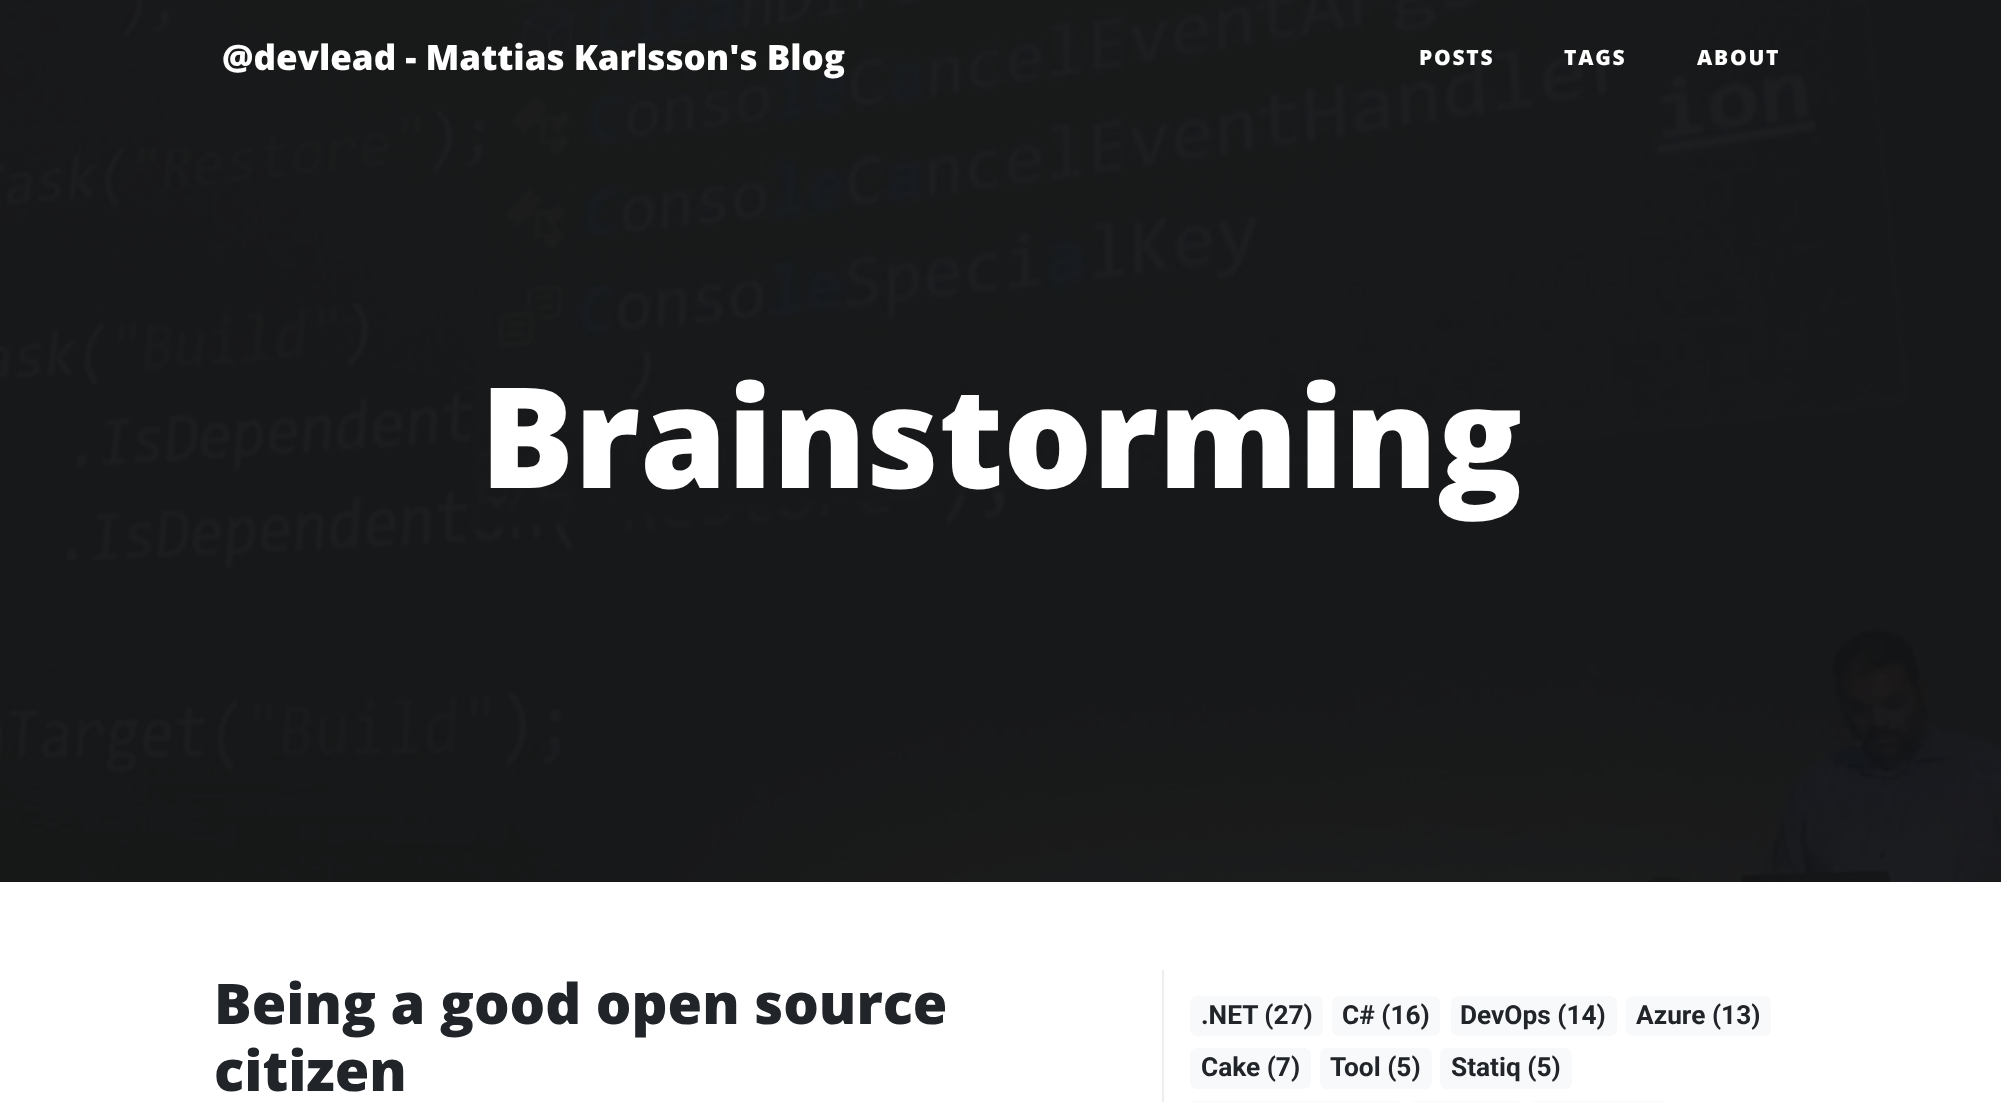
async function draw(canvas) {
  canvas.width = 2001
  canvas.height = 1102
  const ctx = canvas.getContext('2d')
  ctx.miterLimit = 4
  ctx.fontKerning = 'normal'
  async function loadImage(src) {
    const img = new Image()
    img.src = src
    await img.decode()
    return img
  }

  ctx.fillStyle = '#fff'
  ctx.fillRect(0, 0, 2001, 1102)
  ctx.drawImage(await loadImage('image0.png'), 0, 0, 2001, 882)
  ctx.font = '800 35px Open Sans'
  ctx.fillText('@devlead - Mattias Karlsson\'s Blog', 222, 70)
  ctx.letterSpacing = '1.75px'
  ctx.font = '800 21px Open Sans'
  ctx.fillText('POSTS', 1419, 65)
  ctx.fillText('TAGS', 1564, 65)
  ctx.fillText('ABOUT', 1697, 65)
  ctx.letterSpacing = '0px'
  ctx.font = '800 140px Open Sans'
  ctx.fillText('Brainstorming', 480, 488)
  ctx.fillStyle = '#eee'
  ctx.fillRect(1162, 970, 2, 132)
  ctx.font = '800 56px Open Sans'
  ctx.fillStyle = '#212529'
  ctx.fillText('Being a good open source', 214, 1024)
  ctx.fillText('citizen', 214, 1091)
  ctx.fillStyle = '#f8f9fa'
  ctx.beginPath()
  ctx.roundRect(1190, 996, 133, 40, 7)
  ctx.fill()
  ctx.font = 'bold 26.25px Roboto'
  ctx.fillStyle = '#212529'
  ctx.fillText('.NET (27)', 1201, 1024)
  ctx.fillStyle = '#f8f9fa'
  ctx.beginPath()
  ctx.roundRect(1332, 996, 108, 40, 7)
  ctx.fill()
  ctx.fillStyle = '#212529'
  ctx.fillText('C# (16)', 1342, 1024)
  ctx.fillStyle = '#f8f9fa'
  ctx.beginPath()
  ctx.roundRect(1451, 996, 166, 40, 7)
  ctx.fill()
  ctx.fillStyle = '#212529'
  ctx.fillText('DevOps (14)', 1460, 1024)
  ctx.fillStyle = '#f8f9fa'
  ctx.beginPath()
  ctx.roundRect(1626, 996, 145, 40, 7)
  ctx.fill()
  ctx.fillStyle = '#212529'
  ctx.fillText('Azure (13)', 1636, 1024)
  ctx.fillStyle = '#f8f9fa'
  ctx.beginPath()
  ctx.roundRect(1190, 1048, 121, 41, 7)
  ctx.fill()
  ctx.fillStyle = '#212529'
  ctx.fillText('Cake (7)', 1201, 1076)
  ctx.fillStyle = '#f8f9fa'
  ctx.beginPath()
  ctx.roundRect(1320, 1048, 112, 41, 7)
  ctx.fill()
  ctx.fillStyle = '#212529'
  ctx.fillText('Tool (5)', 1330, 1076)
  ctx.fillStyle = '#f8f9fa'
  ctx.beginPath()
  ctx.roundRect(1440, 1048, 132, 41, 7)
  ctx.fill()
  ctx.fillStyle = '#212529'
  ctx.fillText('Statiq (5)', 1451, 1076)
  ctx.fillStyle = '#f8f9fa'
  ctx.beginPath()
  ctx.roundRect(1190, 1101, 210, 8, 7)
  ctx.fill()
  ctx.beginPath()
  ctx.roundRect(1411, 1101, 110, 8, 7)
  ctx.fill()
  ctx.beginPath()
  ctx.roundRect(1531, 1101, 135, 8, 7)
  ctx.fill()
}

draw(document.querySelector('canvas'))
